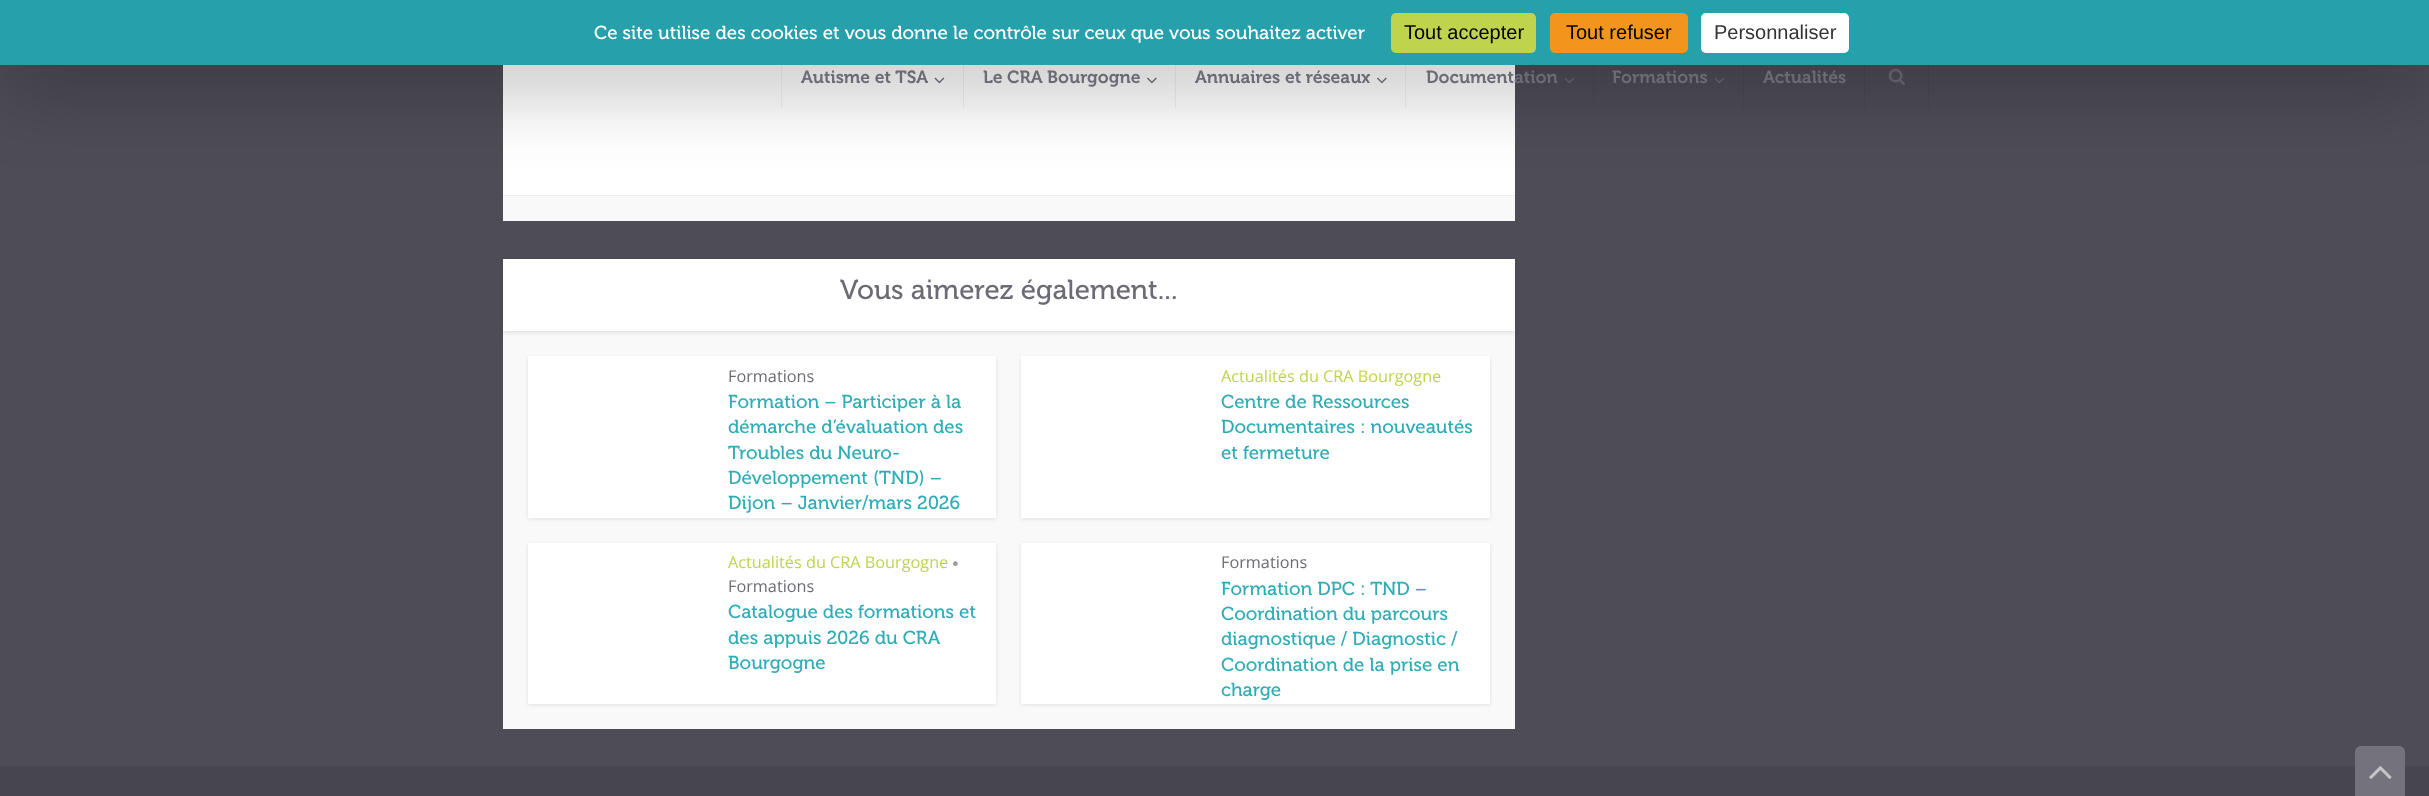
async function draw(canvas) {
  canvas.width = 2429
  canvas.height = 796
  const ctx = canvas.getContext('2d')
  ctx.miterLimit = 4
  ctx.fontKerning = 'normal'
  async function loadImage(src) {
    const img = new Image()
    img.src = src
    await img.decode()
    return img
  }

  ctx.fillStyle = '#4e4c56'
  ctx.fillRect(0, 0, 2429, 796)
  ctx.fillStyle = '#fff'
  ctx.fillRect(503, 65, 1012, 130)
  ctx.fillStyle = '#0000000d'
  ctx.beginPath()
  ctx.moveTo(781, 49)
  ctx.lineTo(781, 109)
  ctx.lineTo(963, 109)
  ctx.lineTo(782, 109)
  ctx.lineTo(782, 49)
  ctx.closePath()
  ctx.fill()
  ctx.drawImage(await loadImage('image0.png'), 934, 77, 11, 7)
  ctx.beginPath()
  ctx.moveTo(963, 49)
  ctx.lineTo(963, 109)
  ctx.lineTo(1175, 109)
  ctx.lineTo(964, 109)
  ctx.lineTo(964, 49)
  ctx.closePath()
  ctx.fill()
  ctx.drawImage(await loadImage('image1.png'), 1147, 77, 10, 7)
  ctx.beginPath()
  ctx.moveTo(1175, 49)
  ctx.lineTo(1175, 109)
  ctx.lineTo(1405, 109)
  ctx.lineTo(1176, 109)
  ctx.lineTo(1176, 49)
  ctx.closePath()
  ctx.fill()
  ctx.drawImage(await loadImage('image1.png'), 1377, 77, 10, 7)
  ctx.beginPath()
  ctx.moveTo(1405, 49)
  ctx.lineTo(1405, 109)
  ctx.lineTo(1593, 109)
  ctx.lineTo(1406, 109)
  ctx.lineTo(1406, 49)
  ctx.closePath()
  ctx.fill()
  ctx.drawImage(await loadImage('image2.png'), 1564, 77, 10, 7)
  ctx.beginPath()
  ctx.moveTo(1593, 49)
  ctx.lineTo(1593, 109)
  ctx.lineTo(1743, 109)
  ctx.lineTo(1594, 109)
  ctx.lineTo(1594, 49)
  ctx.closePath()
  ctx.fill()
  ctx.drawImage(await loadImage('image2.png'), 1714, 77, 10, 7)
  ctx.beginPath()
  ctx.moveTo(1743, 49)
  ctx.lineTo(1743, 109)
  ctx.lineTo(1864, 109)
  ctx.lineTo(1744, 109)
  ctx.lineTo(1744, 49)
  ctx.closePath()
  ctx.fill()
  ctx.beginPath()
  ctx.moveTo(1866, 109)
  ctx.lineTo(1929, 109)
  ctx.lineTo(1929, 49)
  ctx.lineTo(1928, 49)
  ctx.lineTo(1928, 109)
  ctx.closePath()
  ctx.fill()
  ctx.beginPath()
  ctx.moveTo(1864, 49)
  ctx.lineTo(1864, 109)
  ctx.lineTo(1926, 109)
  ctx.lineTo(1865, 109)
  ctx.lineTo(1865, 49)
  ctx.closePath()
  ctx.fill()
  ctx.drawImage(await loadImage('image3.png'), 1888, 68, 17, 17)
  ctx.fillStyle = '#f9f9f9'
  ctx.fillRect(503, 196, 1012, 25)
  ctx.fillStyle = '#ededed'
  ctx.fillRect(503, 195, 1012, 1)
  ctx.fillStyle = '#00000040'
  ctx.filter = 'blur(37.5px)'
  ctx.beginPath()
  ctx.rect(0, 25, 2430, 65)
  ctx.fill()
  ctx.filter = 'none'
  ctx.fillStyle = '#26a1ab'
  ctx.fillRect(0, 0, 2429, 65)
  ctx.font = '18.75px "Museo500"'
  ctx.fillStyle = '#fff'
  ctx.fillText('Ce site utilise des cookies et vous donne le contrôle sur ceux que vous souhaitez activer', 594, 39)
  ctx.fillStyle = '#bfd34d'
  ctx.beginPath()
  ctx.roundRect(1391, 13, 145, 40, 5)
  ctx.fill()
  ctx.font = '20px Liberation Sans'
  ctx.fillStyle = '#000'
  ctx.fillText('Tout accepter', 1404, 39)
  ctx.fillStyle = '#f3951c'
  ctx.beginPath()
  ctx.roundRect(1550, 13, 138, 40, 5)
  ctx.fill()
  ctx.fillStyle = '#000'
  ctx.fillText('Tout refuser', 1566, 39)
  ctx.fillStyle = '#fff'
  ctx.beginPath()
  ctx.roundRect(1701, 13, 148, 40, 5)
  ctx.fill()
  ctx.fillStyle = '#333'
  ctx.fillText('Personnaliser', 1714, 39)
  ctx.font = '17.5px "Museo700"'
  ctx.fillStyle = '#6c6b75'
  ctx.fillText('Autisme et TSA', 801, 83)
  ctx.fillText('Le CRA Bourgogne', 983, 83)
  ctx.fillText('Annuaires et réseaux', 1195, 83)
  ctx.fillText('Documentation', 1426, 83)
  ctx.fillText('Formations', 1612, 83)
  ctx.fillText('Actualités', 1763, 83)
  ctx.fillStyle = '#f9f9f9'
  ctx.fillRect(503, 331, 1012, 398)
  ctx.fillStyle = '#0000001a'
  ctx.filter = 'blur(2px)'
  ctx.beginPath()
  ctx.rect(503, 260, 1012, 73)
  ctx.fill()
  ctx.filter = 'none'
  ctx.fillStyle = '#fff'
  ctx.fillRect(503, 259, 1012, 72)
  ctx.font = '27.5px "Museo500"'
  ctx.fillStyle = '#6c6b75'
  ctx.fillText('Vous aimerez également...', 840, 299)
  ctx.fillStyle = '#0000001a'
  ctx.filter = 'blur(2px)'
  ctx.beginPath()
  ctx.rect(528, 358, 468, 161)
  ctx.fill()
  ctx.filter = 'none'
  ctx.fillStyle = '#fff'
  ctx.fillRect(528, 356, 468, 162)
  ctx.font = '16.25px Open Sans'
  ctx.fillStyle = '#6c6b75'
  ctx.fillText('Formations', 728, 382)
  ctx.font = '18.75px "Museo500"'
  ctx.fillStyle = '#2eadb6'
  ctx.fillText('Formation – Participer à la', 728, 408)
  ctx.fillText('démarche d’évaluation des', 728, 433)
  ctx.fillText('Troubles du Neuro-', 728, 459)
  ctx.fillText('Développement (TND) –', 728, 484)
  ctx.fillText('Dijon – Janvier/mars 2026', 728, 509)
  ctx.fillStyle = '#0000001a'
  ctx.filter = 'blur(2px)'
  ctx.beginPath()
  ctx.rect(1021, 358, 469, 161)
  ctx.fill()
  ctx.filter = 'none'
  ctx.fillStyle = '#fff'
  ctx.fillRect(1021, 356, 469, 162)
  ctx.font = '16.25px Open Sans'
  ctx.fillStyle = '#bfd34d'
  ctx.fillText('Actualités du CRA Bourgogne', 1221, 382)
  ctx.font = '18.75px "Museo500"'
  ctx.fillStyle = '#2eadb6'
  ctx.fillText('Centre de Ressources', 1221, 408)
  ctx.fillText('Documentaires : nouveautés', 1221, 433)
  ctx.fillText('et fermeture', 1221, 459)
  ctx.fillStyle = '#0000001a'
  ctx.filter = 'blur(2px)'
  ctx.beginPath()
  ctx.rect(528, 544, 468, 161)
  ctx.fill()
  ctx.filter = 'none'
  ctx.fillStyle = '#fff'
  ctx.fillRect(528, 543, 468, 161)
  ctx.font = '16.25px Open Sans'
  ctx.fillStyle = '#bfd34d'
  ctx.fillText('Actualités du CRA Bourgogne', 728, 568)
  ctx.font = '15px "Museo500"'
  ctx.fillStyle = '#9b9b9b'
  ctx.fillText('•', 952, 568)
  ctx.font = '16.25px Open Sans'
  ctx.fillStyle = '#6c6b75'
  ctx.fillText('Formations', 728, 592)
  ctx.font = '18.75px "Museo500"'
  ctx.fillStyle = '#2eadb6'
  ctx.fillText('Catalogue des formations et', 728, 618)
  ctx.fillText('des appuis 2026 du CRA', 728, 644)
  ctx.fillText('Bourgogne', 728, 669)
  ctx.fillStyle = '#0000001a'
  ctx.filter = 'blur(2px)'
  ctx.beginPath()
  ctx.rect(1021, 544, 469, 161)
  ctx.fill()
  ctx.filter = 'none'
  ctx.fillStyle = '#fff'
  ctx.fillRect(1021, 543, 469, 161)
  ctx.font = '16.25px Open Sans'
  ctx.fillStyle = '#6c6b75'
  ctx.fillText('Formations', 1221, 568)
  ctx.font = '18.75px "Museo500"'
  ctx.fillStyle = '#2eadb6'
  ctx.fillText('Formation DPC : TND –', 1221, 595)
  ctx.fillText('Coordination du parcours', 1221, 620)
  ctx.fillText('diagnostique / Diagnostic /', 1221, 645)
  ctx.fillText('Coordination de la prise en', 1221, 671)
  ctx.fillText('charge', 1221, 696)
  ctx.fillStyle = '#47464e'
  ctx.fillRect(0, 766, 2429, 30)
  ctx.fillStyle = '#74727c'
  ctx.beginPath()
  ctx.roundRect(2355, 746, 50, 50, [6, 6, 0, 0])
  ctx.fill()
  ctx.drawImage(await loadImage('image4.png'), 2369, 766, 23, 13)
}

draw(document.querySelector('canvas'))
